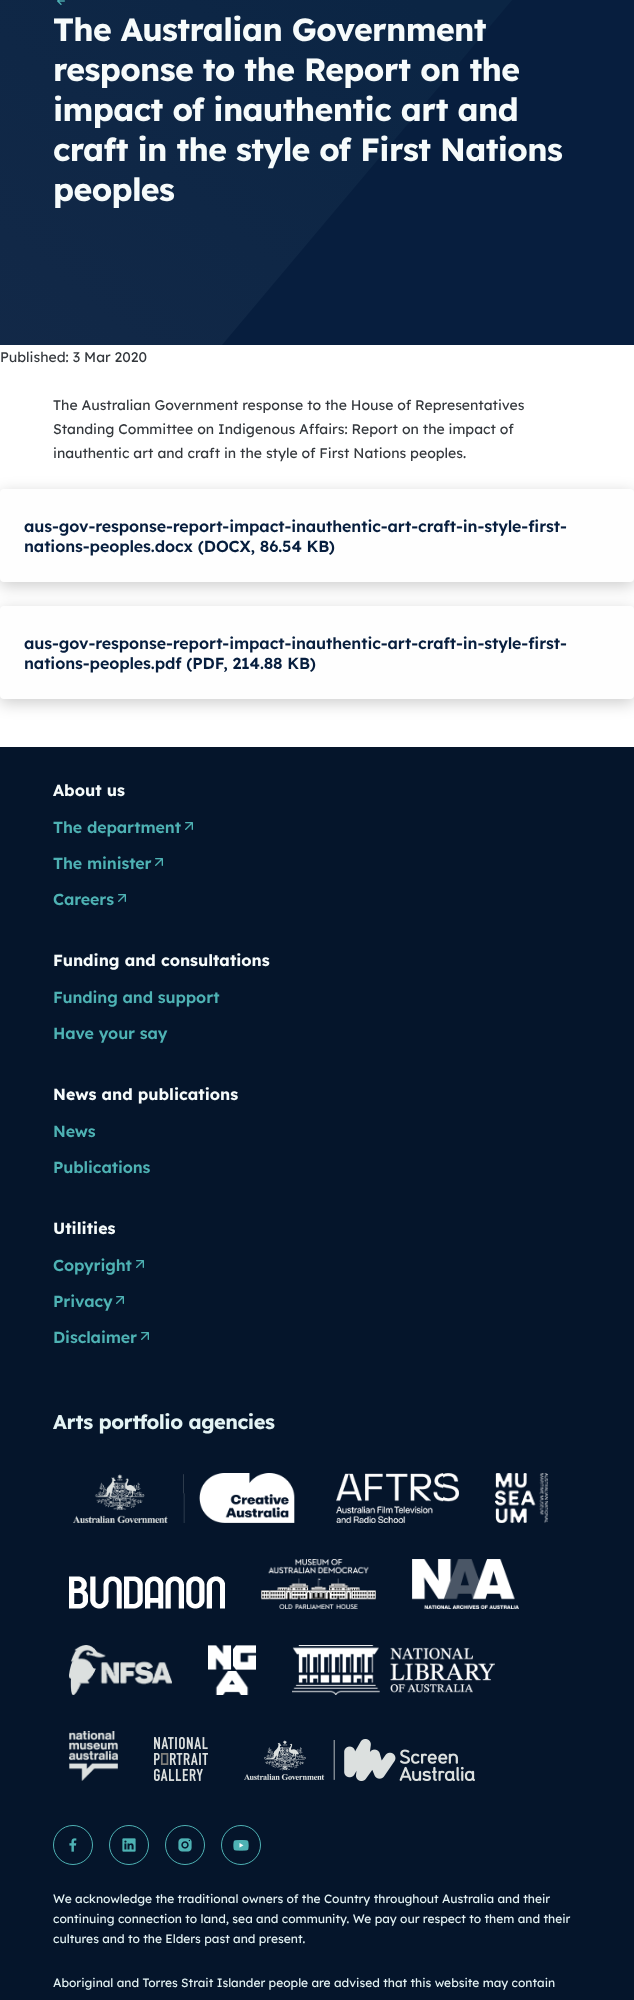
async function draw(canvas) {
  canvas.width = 634
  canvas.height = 2000
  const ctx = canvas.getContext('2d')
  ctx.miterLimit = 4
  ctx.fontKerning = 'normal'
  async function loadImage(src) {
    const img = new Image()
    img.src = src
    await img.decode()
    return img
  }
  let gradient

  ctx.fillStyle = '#fff'
  ctx.fillRect(0, 0, 634, 2000)
  ctx.fillStyle = '#071e3e'
  ctx.fillRect(222, 0, 412, 345)
  gradient = ctx.createLinearGradient(-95, 345, 285, -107)
  gradient.addColorStop(0, '#132948')
  gradient.addColorStop(1, '#0b2544')
  ctx.fillStyle = gradient
  ctx.beginPath()
  ctx.moveTo(-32, -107)
  ctx.lineTo(602, -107)
  ctx.lineTo(222, 345)
  ctx.lineTo(-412, 345)
  ctx.closePath()
  ctx.fill()
  ctx.drawImage(await loadImage('image0.png'), 57, 0, 8, 5)
  ctx.letterSpacing = '-0.6px'
  ctx.font = 'bold 32px Lexend'
  ctx.fillStyle = '#f6fbfb'
  ctx.fillText('The Australian Government', 53, 41)
  ctx.fillText('response to the Report on the', 53, 81)
  ctx.fillText('impact of inauthentic art and', 53, 121)
  ctx.fillText('craft in the style of First Nations', 53, 161)
  ctx.fillText('peoples', 53, 201)
  ctx.letterSpacing = '0px'
  ctx.font = '14px Lexend'
  ctx.fillStyle = '#34383d'
  ctx.fillText('Published: 3 Mar 2020', 0, 362)
  ctx.fillText('The Australian Government response to the House of Representatives', 53, 410)
  ctx.fillText('Standing Committee on Indigenous Affairs: Report on the impact of', 53, 434)
  ctx.fillText('inauthentic art and craft in the style of First Nations peoples.', 53, 458)
  ctx.fillStyle = '#00000033'
  ctx.filter = 'blur(8px)'
  ctx.beginPath()
  ctx.roundRect(0, 493, 634, 93, 4)
  ctx.fill()
  ctx.filter = 'none'
  ctx.fillStyle = '#fefefe'
  ctx.beginPath()
  ctx.roundRect(0, 489, 634, 93, 4)
  ctx.fill()
  ctx.letterSpacing = '-0.1px'
  ctx.font = '600 16px Lexend'
  ctx.fillStyle = '#071e3e'
  ctx.fillText('aus-gov-response-report-impact-inauthentic-art-craft-in-style-first-', 24, 532)
  ctx.fillText('nations-peoples.docx (DOCX, 86.54 KB)', 24, 552)
  ctx.fillStyle = '#00000033'
  ctx.filter = 'blur(8px)'
  ctx.beginPath()
  ctx.roundRect(0, 610, 634, 93, 4)
  ctx.fill()
  ctx.filter = 'none'
  ctx.fillStyle = '#fefefe'
  ctx.beginPath()
  ctx.roundRect(0, 606, 634, 93, 4)
  ctx.fill()
  ctx.fillStyle = '#071e3e'
  ctx.fillText('aus-gov-response-report-impact-inauthentic-art-craft-in-style-first-', 24, 649)
  ctx.fillText('nations-peoples.pdf (PDF, 214.88 KB)', 24, 669)
  ctx.fillStyle = '#05152b'
  ctx.fillRect(0, 747, 634, 1253)
  ctx.letterSpacing = '0px'
  ctx.font = 'bold 16px Lexend'
  ctx.fillStyle = '#f6fbfb'
  ctx.fillText('About us', 53, 796)
  ctx.letterSpacing = '-0.1px'
  ctx.font = '600 16px Lexend'
  ctx.fillStyle = '#4eb2b4'
  ctx.fillText('The department', 53, 833)
  ctx.drawImage(await loadImage('image1.png'), 185, 822, 8, 8)
  ctx.fillText('The minister', 53, 869)
  ctx.drawImage(await loadImage('image1.png'), 155, 858, 8, 8)
  ctx.fillText('Careers', 53, 905)
  ctx.drawImage(await loadImage('image1.png'), 118, 894, 8, 8)
  ctx.letterSpacing = '0px'
  ctx.font = 'bold 16px Lexend'
  ctx.fillStyle = '#f6fbfb'
  ctx.fillText('Funding and consultations', 53, 966)
  ctx.letterSpacing = '-0.1px'
  ctx.font = '600 16px Lexend'
  ctx.fillStyle = '#4eb2b4'
  ctx.fillText('Funding and support', 53, 1003)
  ctx.fillText('Have your say', 53, 1039)
  ctx.letterSpacing = '0px'
  ctx.font = 'bold 16px Lexend'
  ctx.fillStyle = '#f6fbfb'
  ctx.fillText('News and publications', 53, 1100)
  ctx.letterSpacing = '-0.1px'
  ctx.font = '600 16px Lexend'
  ctx.fillStyle = '#4eb2b4'
  ctx.fillText('News', 53, 1137)
  ctx.fillText('Publications', 53, 1173)
  ctx.letterSpacing = '0px'
  ctx.font = 'bold 16px Lexend'
  ctx.fillStyle = '#f6fbfb'
  ctx.fillText('Utilities', 53, 1234)
  ctx.letterSpacing = '-0.1px'
  ctx.font = '600 16px Lexend'
  ctx.fillStyle = '#4eb2b4'
  ctx.fillText('Copyright', 53, 1271)
  ctx.drawImage(await loadImage('image1.png'), 136, 1260, 8, 8)
  ctx.fillText('Privacy', 53, 1307)
  ctx.drawImage(await loadImage('image1.png'), 116, 1296, 8, 8)
  ctx.fillText('Disclaimer', 53, 1343)
  ctx.drawImage(await loadImage('image1.png'), 141, 1332, 8, 8)
  ctx.letterSpacing = '-0.5px'
  ctx.font = 'bold 20px Lexend'
  ctx.fillStyle = '#e4f3f4'
  ctx.fillText('Arts portfolio agencies', 53, 1429)
  ctx.drawImage(await loadImage('image2.png'), 73, 1473, 222, 50)
  ctx.drawImage(await loadImage('image3.png'), 336, 1473, 123, 50)
  ctx.drawImage(await loadImage('image4.png'), 495, 1473, 53, 50)
  ctx.drawImage(await loadImage('image5.png'), 69, 1576, 156, 33)
  ctx.drawImage(await loadImage('image6.png'), 261, 1559, 115, 50)
  ctx.drawImage(await loadImage('image7.png'), 412, 1559, 107, 50)
  ctx.drawImage(await loadImage('image8.png'), 69, 1645, 103, 50)
  ctx.drawImage(await loadImage('image9.png'), 208, 1645, 48, 50)
  ctx.drawImage(await loadImage('image10.png'), 292, 1645, 203, 50)
  ctx.drawImage(await loadImage('image11.png'), 69, 1731, 49, 50)
  ctx.drawImage(await loadImage('image12.png'), 154, 1737, 54, 44)
  ctx.drawImage(await loadImage('image13.png'), 244, 1739, 231, 42)
  ctx.beginPath()
  ctx.arc(73, 1845, 19.5, 0, 2 * Math.PI)
  ctx.strokeStyle = '#4eb2b4'
  ctx.stroke()
  ctx.drawImage(await loadImage('image14.png'), 69, 1838, 8, 14)
  ctx.beginPath()
  ctx.arc(129, 1845, 19.5, 0, 2 * Math.PI)
  ctx.stroke()
  ctx.drawImage(await loadImage('image15.png'), 122, 1838, 14, 14)
  ctx.beginPath()
  ctx.arc(185, 1845, 19.5, 0, 2 * Math.PI)
  ctx.stroke()
  ctx.drawImage(await loadImage('image16.png'), 178, 1838, 14, 14)
  ctx.beginPath()
  ctx.arc(241, 1845, 19.5, 0, 2 * Math.PI)
  ctx.stroke()
  ctx.drawImage(await loadImage('image17.png'), 233, 1840, 16, 11)
  ctx.letterSpacing = '0px'
  ctx.font = '12px Lexend'
  ctx.fillText('We acknowledge the traditional owners of the Country throughout Australia and their', 53, 1903)
  ctx.fillText('continuing connection to land, sea and community. We pay our respect to them and their', 53, 1923)
  ctx.fillText('cultures and to the Elders past and present.', 53, 1943)
  ctx.fillText('Aboriginal and Torres Strait Islander people are advised that this website may contain', 53, 1987)
}

draw(document.querySelector('canvas'))
